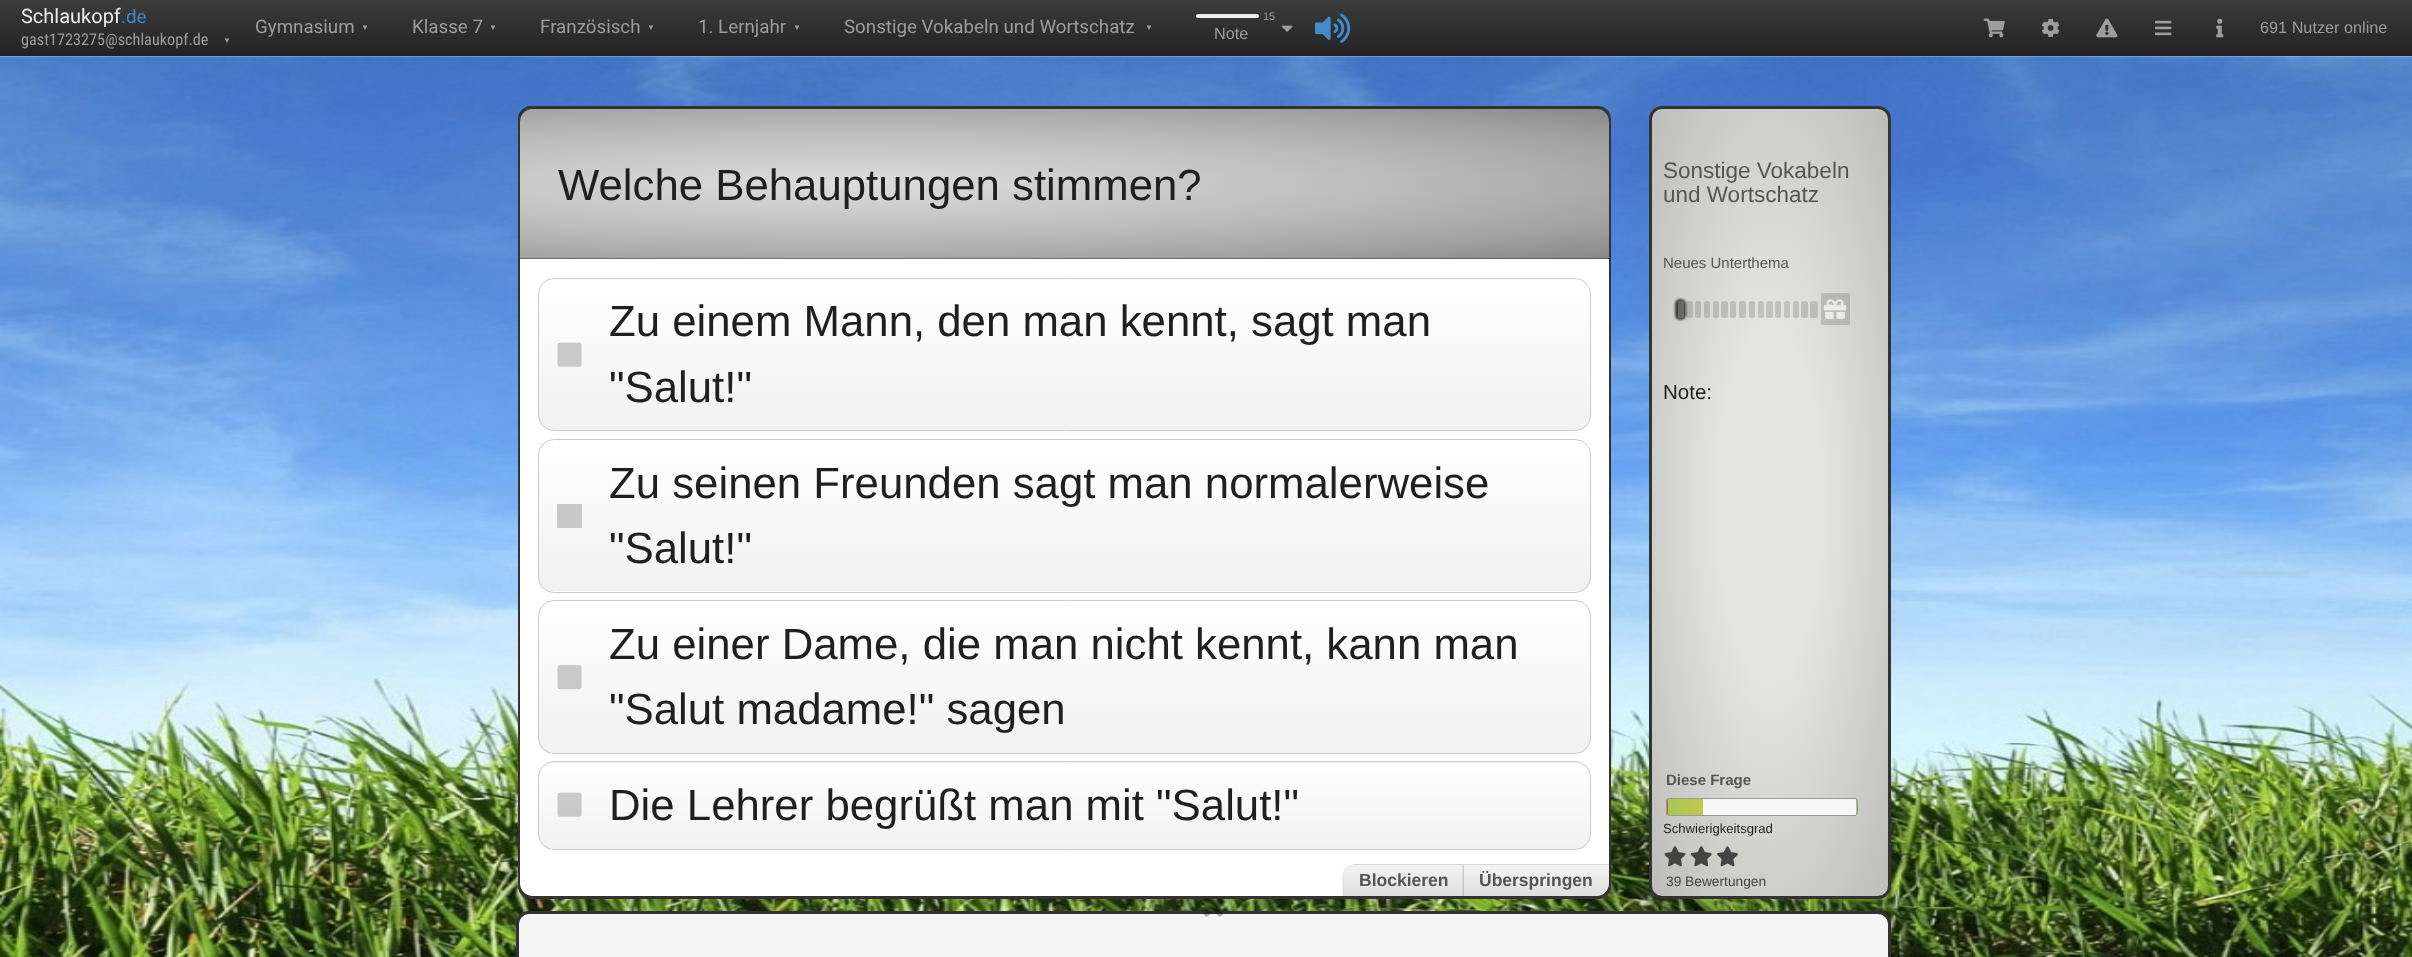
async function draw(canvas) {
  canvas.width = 2412
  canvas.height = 957
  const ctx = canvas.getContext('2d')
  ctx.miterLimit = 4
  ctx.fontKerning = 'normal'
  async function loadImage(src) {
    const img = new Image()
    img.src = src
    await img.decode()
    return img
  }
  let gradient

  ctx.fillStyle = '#fff'
  ctx.fillRect(0, 0, 2412, 957)
  gradient = ctx.createLinearGradient(1206, 0, 1206, 56)
  gradient.addColorStop(0, '#3c3c3c')
  gradient.addColorStop(1, '#222')
  ctx.fillStyle = gradient
  ctx.fillRect(0, 0, 2412, 56)
  ctx.font = '20px Roboto'
  ctx.fillStyle = '#eee'
  ctx.fillText('Schlaukopf', 21, 23)
  ctx.font = '18.75px Roboto'
  ctx.fillStyle = '#428bca'
  ctx.fillText('.de', 121, 23)
  ctx.font = '16.25px Roboto Condensed'
  ctx.fillStyle = '#9d9d9d'
  ctx.fillText('gast1723275@schlaukopf.de', 21, 45)
  ctx.letterSpacing = '5px'
  ctx.font = '8px Liberation Sans'
  ctx.fillText('▼', 223, 43)
  ctx.letterSpacing = '0px'
  ctx.font = '18.75px Roboto'
  ctx.fillText('Gymnasium', 255, 33)
  ctx.letterSpacing = '5px'
  ctx.font = '8px Liberation Sans'
  ctx.fillText('▼', 361, 30)
  ctx.letterSpacing = '0px'
  ctx.font = '18.75px Roboto'
  ctx.fillText('Klasse 7', 412, 33)
  ctx.letterSpacing = '5px'
  ctx.font = '8px Liberation Sans'
  ctx.fillText('▼', 489, 30)
  ctx.letterSpacing = '0px'
  ctx.font = '18.75px Roboto'
  ctx.fillText('Französisch', 540, 33)
  ctx.letterSpacing = '5px'
  ctx.font = '8px Liberation Sans'
  ctx.fillText('▼', 647, 30)
  ctx.letterSpacing = '0px'
  ctx.font = '18.75px Roboto'
  ctx.fillText('1. Lernjahr', 698, 33)
  ctx.letterSpacing = '5px'
  ctx.font = '8px Liberation Sans'
  ctx.fillText('▼', 793, 30)
  ctx.letterSpacing = '0px'
  ctx.font = '18.75px Roboto'
  ctx.fillText('Sonstige Vokabeln und Wortschatz', 844, 33)
  ctx.letterSpacing = '5px'
  ctx.font = '8px Liberation Sans'
  ctx.fillText('▼', 1145, 30)
  gradient = ctx.createLinearGradient(1228, 14, 1228, 18)
  gradient.addColorStop(0, '#ebebeb')
  gradient.addColorStop(1, '#f5f5f5')
  ctx.fillStyle = gradient
  ctx.beginPath()
  ctx.roundRect(1196, 14, 63, 4, 2)
  ctx.fill()
  ctx.letterSpacing = '0px'
  ctx.font = '11px Liberation Sans'
  ctx.fillStyle = '#9d9d9d'
  ctx.fillText('15', 1263, 20)
  ctx.font = '16.25px Liberation Sans'
  ctx.fillText('Note', 1214, 39)
  ctx.drawImage(await loadImage('image0.png'), 1281, 25, 12, 7)
  ctx.drawImage(await loadImage('image1.png'), 1315, 13, 36, 30)
  ctx.drawImage(await loadImage('image2.png'), 1983, 18, 22, 20)
  ctx.drawImage(await loadImage('image3.png'), 2042, 18, 18, 19)
  ctx.drawImage(await loadImage('image4.png'), 2096, 18, 22, 20)
  ctx.drawImage(await loadImage('image5.png'), 2155, 20, 17, 16)
  ctx.drawImage(await loadImage('image6.png'), 2216, 18, 8, 20)
  ctx.fillText('691 Nutzer online', 2260, 33)
  ctx.drawImage(await loadImage('image7.png'), 0, 56, 2412, 901)
  ctx.beginPath()
  ctx.roundRect(519.5, 107.5, 1090, 790, 11.5)
  ctx.strokeStyle = '#333'
  ctx.lineWidth = 3
  ctx.stroke()
  gradient = ctx.createRadialGradient(847, 1915.63, 0, 847, 1915.63, 1633)
  gradient.addColorStop(0, '#ddd')
  gradient.addColorStop(0.33, '#bcbcbc')
  gradient.addColorStop(0.53, '#a1a1a1')
  gradient.addColorStop(1, '#4c4c4c')
  ctx.fillStyle = gradient
  ctx.beginPath()
  ctx.roundRect(520, 109, 1089, 149, [13, 13, 0, 0])
  ctx.save()
  ctx.clip()
  ctx.scale(1, 156 / 1633)
  ctx.fillRect(0, 0, 2412, 10018)
  ctx.restore()
  gradient = ctx.createRadialGradient(847, 3475.36, 0, 847, 3475.36, 1633)
  gradient.addColorStop(0, '#ddd')
  gradient.addColorStop(0.33, '#bcbcbc')
  gradient.addColorStop(0.53, '#a1a1a1')
  gradient.addColorStop(1, '#4c4c4c')
  ctx.fillStyle = gradient
  ctx.beginPath()
  ctx.rect(520, 258, 1089, 1)
  ctx.save()
  ctx.clip()
  ctx.scale(1, 156 / 1633)
  ctx.fillRect(0, 0, 2412, 10018)
  ctx.restore()
  ctx.fillStyle = '#32323280'
  ctx.fillRect(520, 258, 1089, 1)
  ctx.font = '43.75px Liberation Sans'
  ctx.fillStyle = '#1f1f1f'
  ctx.fillText('Welche Behauptungen stimmen?', 558, 200)
  ctx.fillStyle = '#fff'
  ctx.beginPath()
  ctx.roundRect(520, 259, 1089, 637, [0, 0, 13, 13])
  ctx.fill()
  ctx.save()
  ctx.beginPath()
  ctx.roundRect(538, 278, 1053, 153, 16)
  ctx.clip()
  gradient = ctx.createLinearGradient(1064, 279, 1064, 430)
  gradient.addColorStop(0, '#fff')
  gradient.addColorStop(1, '#f1f1f1')
  ctx.fillStyle = gradient
  ctx.fillRect(538, 279, 1053, 151)
  ctx.restore()
  ctx.beginPath()
  ctx.roundRect(538.5, 278.5, 1052, 152, 15.5)
  ctx.strokeStyle = '#ccc'
  ctx.lineWidth = 1
  ctx.stroke()
  ctx.drawImage(await loadImage('image8.png'), 557, 342, 25, 25)
  ctx.fillStyle = '#1f1f1f'
  ctx.fillText('Zu einem Mann, den man kennt, sagt man', 609, 336)
  ctx.fillText('"Salut!"', 609, 402)
  ctx.save()
  ctx.beginPath()
  ctx.roundRect(538, 439, 1053, 154, 16)
  ctx.clip()
  gradient = ctx.createLinearGradient(1064, 440, 1064, 591)
  gradient.addColorStop(0, '#fff')
  gradient.addColorStop(1, '#f1f1f1')
  ctx.fillStyle = gradient
  ctx.fillRect(538, 440, 1053, 151)
  ctx.restore()
  ctx.beginPath()
  ctx.roundRect(538.5, 439.5, 1052, 153, 15.5)
  ctx.stroke()
  ctx.fillStyle = '#c8c8c8'
  ctx.fillRect(557, 504, 25, 24)
  ctx.fillStyle = '#1f1f1f'
  ctx.fillText('Zu seinen Freunden sagt man normalerweise', 609, 498)
  ctx.fillText('"Salut!"', 609, 563)
  ctx.save()
  ctx.beginPath()
  ctx.roundRect(538, 600, 1053, 154, 16)
  ctx.clip()
  gradient = ctx.createLinearGradient(1064, 601, 1064, 753)
  gradient.addColorStop(0, '#fff')
  gradient.addColorStop(1, '#f1f1f1')
  ctx.fillStyle = gradient
  ctx.fillRect(538, 601, 1053, 152)
  ctx.restore()
  ctx.beginPath()
  ctx.roundRect(538.5, 600.5, 1052, 153, 15.5)
  ctx.stroke()
  ctx.drawImage(await loadImage('image9.png'), 557, 665, 25, 25)
  ctx.fillText('Zu einer Dame, die man nicht kennt, kann man', 609, 659)
  ctx.fillText('"Salut madame!" sagen', 609, 724)
  ctx.save()
  ctx.beginPath()
  ctx.roundRect(538, 761, 1053, 89, 16)
  ctx.clip()
  gradient = ctx.createLinearGradient(1064, 676, 1064, 763)
  gradient.addColorStop(0, '#fff')
  gradient.addColorStop(1, '#f1f1f1')
  ctx.fillStyle = gradient
  ctx.fillRect(538, 761, 1053, 2)
  gradient = ctx.createLinearGradient(1064, 763, 1064, 849)
  gradient.addColorStop(0, '#fff')
  gradient.addColorStop(1, '#f1f1f1')
  ctx.fillStyle = gradient
  ctx.fillRect(538, 763, 1053, 86)
  ctx.restore()
  ctx.beginPath()
  ctx.roundRect(538.5, 761.5, 1052, 88, 15.5)
  ctx.stroke()
  ctx.drawImage(await loadImage('image10.png'), 557, 792, 25, 25)
  ctx.fillText('Die Lehrer begrüßt man mit "Salut!"', 609, 820)
  ctx.save()
  ctx.beginPath()
  ctx.roundRect(1343, 864, 120, 32, [13, 0, 0, 0])
  ctx.clip()
  gradient = ctx.createLinearGradient(1403, 834, 1403, 865)
  gradient.addColorStop(0, '#f4f4f4')
  gradient.addColorStop(1, '#dfdfdf')
  ctx.fillStyle = gradient
  ctx.fillRect(1343, 864, 120, 1)
  gradient = ctx.createLinearGradient(1403, 865, 1403, 896)
  gradient.addColorStop(0, '#f4f4f4')
  gradient.addColorStop(1, '#dfdfdf')
  ctx.fillStyle = gradient
  ctx.fillRect(1343, 865, 120, 31)
  ctx.restore()
  ctx.fillStyle = '#9696961a'
  ctx.beginPath()
  ctx.moveTo(1355, 864)
  ctx.lineTo(1462, 864)
  ctx.lineTo(1462, 896)
  ctx.lineTo(1342, 896)
  ctx.lineTo(1342, 876)
  ctx.bezierCurveTo(1342, 869, 1348, 864, 1355, 864)
  ctx.closePath()
  ctx.moveTo(1355, 865)
  ctx.lineTo(1462, 865)
  ctx.lineTo(1462, 896)
  ctx.lineTo(1344, 896)
  ctx.lineTo(1344, 876)
  ctx.bezierCurveTo(1344, 870, 1349, 865, 1355, 865)
  ctx.closePath()
  ctx.fill('evenodd')
  ctx.font = 'bold 17.5px Liberation Sans'
  ctx.fillStyle = '#555'
  ctx.fillText('Blockieren', 1359, 886)
  gradient = ctx.createLinearGradient(1536, 834, 1536, 865)
  gradient.addColorStop(0, '#f4f4f4')
  gradient.addColorStop(1, '#dfdfdf')
  ctx.fillStyle = gradient
  ctx.fillRect(1463, 864, 1, 1)
  gradient = ctx.createLinearGradient(1536, 865, 1536, 896)
  gradient.addColorStop(0, '#e4e4e466')
  gradient.addColorStop(1, '#aeaeae66')
  ctx.fillStyle = gradient
  ctx.beginPath()
  ctx.roundRect(1463, 865, 146, 31, [0, 0, 13, 0])
  ctx.fill()
  ctx.fillStyle = '#d8d8d8'
  ctx.beginPath()
  ctx.moveTo(1464, 865)
  ctx.lineTo(1463, 864)
  ctx.lineTo(1609, 864)
  ctx.lineTo(1609, 865)
  ctx.closePath()
  ctx.fill()
  ctx.fillStyle = '#7878784d'
  ctx.beginPath()
  ctx.moveTo(1463, 864)
  ctx.lineTo(1464, 865)
  ctx.lineTo(1464, 896)
  ctx.lineTo(1462.5, 896)
  ctx.lineTo(1462.5, 864)
  ctx.closePath()
  ctx.fill()
  ctx.fillStyle = '#555'
  ctx.fillText('Überspringen', 1479, 886)
  ctx.save()
  ctx.beginPath()
  ctx.roundRect(1649, 106, 242, 793, 13)
  ctx.clip()
  gradient = ctx.createRadialGradient(1770, 151.71, 0, 1770, 151.71, 168)
  gradient.addColorStop(0, '#e5e6e2')
  gradient.addColorStop(0.3, '#e5e6e2')
  gradient.addColorStop(1, '#bcbdb9')
  ctx.fillStyle = gradient
  ctx.beginPath()
  ctx.rect(1651, 109, 238, 787)
  ctx.save()
  ctx.clip()
  ctx.scale(1, 557 / 168)
  ctx.fillRect(0, 0, 2412, 289)
  ctx.restore()
  ctx.restore()
  ctx.beginPath()
  ctx.roundRect(1650.5, 107.5, 239, 790, 11.5)
  ctx.strokeStyle = '#333'
  ctx.lineWidth = 3
  ctx.stroke()
  ctx.font = '22.5px Liberation Sans'
  ctx.fillText('Sonstige Vokabeln', 1663, 178)
  ctx.fillText('und Wortschatz', 1663, 202)
  ctx.font = '15px Liberation Sans'
  ctx.fillText('Neues Unterthema', 1663, 268)
  ctx.save()
  ctx.beginPath()
  ctx.moveTo(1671, 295)
  ctx.lineTo(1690, 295)
  ctx.lineTo(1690, 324)
  ctx.lineTo(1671, 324)
  ctx.closePath()
  ctx.moveTo(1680.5, 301)
  ctx.lineTo(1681.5, 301)
  ctx.bezierCurveTo(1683, 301, 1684, 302, 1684, 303.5)
  ctx.lineTo(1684, 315.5)
  ctx.bezierCurveTo(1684, 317, 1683, 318, 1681.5, 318)
  ctx.lineTo(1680.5, 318)
  ctx.bezierCurveTo(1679, 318, 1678, 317, 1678, 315.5)
  ctx.lineTo(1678, 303.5)
  ctx.bezierCurveTo(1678, 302, 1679, 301, 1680.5, 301)
  ctx.closePath()
  ctx.clip('evenodd')
  ctx.fillStyle = '#000000b3'
  ctx.filter = 'blur(1px)'
  ctx.beginPath()
  ctx.roundRect(1675, 299, 11, 21, 5)
  ctx.fill()
  ctx.filter = 'none'
  ctx.restore()
  ctx.fillStyle = '#00000080'
  ctx.beginPath()
  ctx.roundRect(1678, 301, 6, 17, 2.5)
  ctx.fill()
  ctx.fillStyle = '#00000026'
  ctx.beginPath()
  ctx.roundRect(1821, 293, 29, 32, 2.5)
  ctx.fill()
  ctx.drawImage(await loadImage('image11.png'), 1823, 299, 24, 20)
  ctx.beginPath()
  ctx.roundRect(1686, 301, 7, 17, 2.5)
  ctx.fill()
  ctx.fillStyle = '#b6b7b4'
  ctx.beginPath()
  ctx.roundRect(1695, 301, 6, 17, 2.5)
  ctx.fill()
  ctx.fillStyle = '#00000026'
  ctx.beginPath()
  ctx.roundRect(1704, 301, 6, 17, 2.5)
  ctx.fill()
  ctx.fillStyle = '#babbb7'
  ctx.beginPath()
  ctx.roundRect(1713, 301, 6, 17, 2.5)
  ctx.fill()
  ctx.fillStyle = '#bcbcb9'
  ctx.beginPath()
  ctx.roundRect(1721, 301, 7, 17, 2.5)
  ctx.fill()
  ctx.fillStyle = '#00000026'
  ctx.beginPath()
  ctx.roundRect(1730, 301, 6, 17, 2.5)
  ctx.fill()
  ctx.fillStyle = '#bebfbc'
  ctx.beginPath()
  ctx.roundRect(1739, 301, 7, 17, 2.5)
  ctx.fill()
  ctx.fillStyle = '#bfc0bd'
  ctx.beginPath()
  ctx.roundRect(1749, 301, 6, 17, 2.5)
  ctx.fill()
  ctx.fillStyle = '#c0c1bd'
  ctx.beginPath()
  ctx.roundRect(1758, 301, 6, 17, 2.5)
  ctx.fill()
  ctx.fillStyle = '#c0c1be'
  ctx.beginPath()
  ctx.roundRect(1766, 301, 7, 17, 2.5)
  ctx.fill()
  ctx.beginPath()
  ctx.roundRect(1775, 301, 6, 17, 2.5)
  ctx.fill()
  ctx.fillStyle = '#c0c0bd'
  ctx.beginPath()
  ctx.roundRect(1784, 301, 6, 17, 2.5)
  ctx.fill()
  ctx.fillStyle = '#bfbfbc'
  ctx.beginPath()
  ctx.roundRect(1793, 301, 6, 17, 2.5)
  ctx.fill()
  ctx.fillStyle = '#bdbebb'
  ctx.beginPath()
  ctx.roundRect(1801, 301, 7, 17, 2.5)
  ctx.fill()
  ctx.fillStyle = '#bcbdb9'
  ctx.beginPath()
  ctx.roundRect(1810, 301, 8, 17, 2.5)
  ctx.fill()
  ctx.font = '20.5px Liberation Sans'
  ctx.fillStyle = '#1f1f1f'
  ctx.fillText('Note:', 1663, 399)
  ctx.font = 'bold 15px Liberation Sans'
  ctx.fillStyle = '#555'
  ctx.fillText('Diese Frage', 1666, 785)
  ctx.save()
  ctx.beginPath()
  ctx.roundRect(1666, 798, 192, 18, 4)
  ctx.clip()
  gradient = ctx.createLinearGradient(1479, 807, 1668, 807)
  gradient.addColorStop(0, '#a5c956')
  gradient.addColorStop(0.5, '#ffbf47')
  gradient.addColorStop(1, '#da4949')
  ctx.fillStyle = gradient
  ctx.fillRect(1666, 798, 2, 18)
  gradient = ctx.createLinearGradient(1668, 807, 1856, 807)
  gradient.addColorStop(0, '#a5c956')
  gradient.addColorStop(0.5, '#ffbf47')
  gradient.addColorStop(1, '#da4949')
  ctx.fillStyle = gradient
  ctx.fillRect(1668, 798, 188, 18)
  gradient = ctx.createLinearGradient(1856, 807, 2045, 807)
  gradient.addColorStop(0, '#a5c956')
  gradient.addColorStop(0.5, '#ffbf47')
  gradient.addColorStop(1, '#da4949')
  ctx.fillStyle = gradient
  ctx.fillRect(1856, 798, 2, 18)
  ctx.restore()
  ctx.beginPath()
  ctx.roundRect(1666.5, 798.5, 191, 17, 3.5)
  ctx.strokeStyle = '#999'
  ctx.lineWidth = 1
  ctx.stroke()
  ctx.fillStyle = '#f6f6f6'
  ctx.fillRect(1703, 799, 153, 16)
  ctx.font = '13.1px Liberation Sans'
  ctx.fillStyle = '#1f1f1f'
  ctx.fillText('Schwierigkeitsgrad', 1663, 833)
  ctx.drawImage(await loadImage('image12.png'), 1664, 846, 22, 21)
  ctx.drawImage(await loadImage('image13.png'), 1690, 846, 22, 21)
  ctx.drawImage(await loadImage('image14.png'), 1717, 846, 21, 21)
  ctx.font = '13.75px Liberation Sans'
  ctx.fillStyle = '#444'
  ctx.fillText('39 Bewertungen', 1666, 886)
  ctx.fillStyle = '#f5f5f5'
  ctx.beginPath()
  ctx.roundRect(517.5, 912.5, 1372, 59, 11.5)
  ctx.fill()
  ctx.strokeStyle = '#333'
  ctx.lineWidth = 3
  ctx.stroke()
  ctx.drawImage(await loadImage('image15.png'), 1204, 898, 19, 19)
}

draw(document.querySelector('canvas'))
